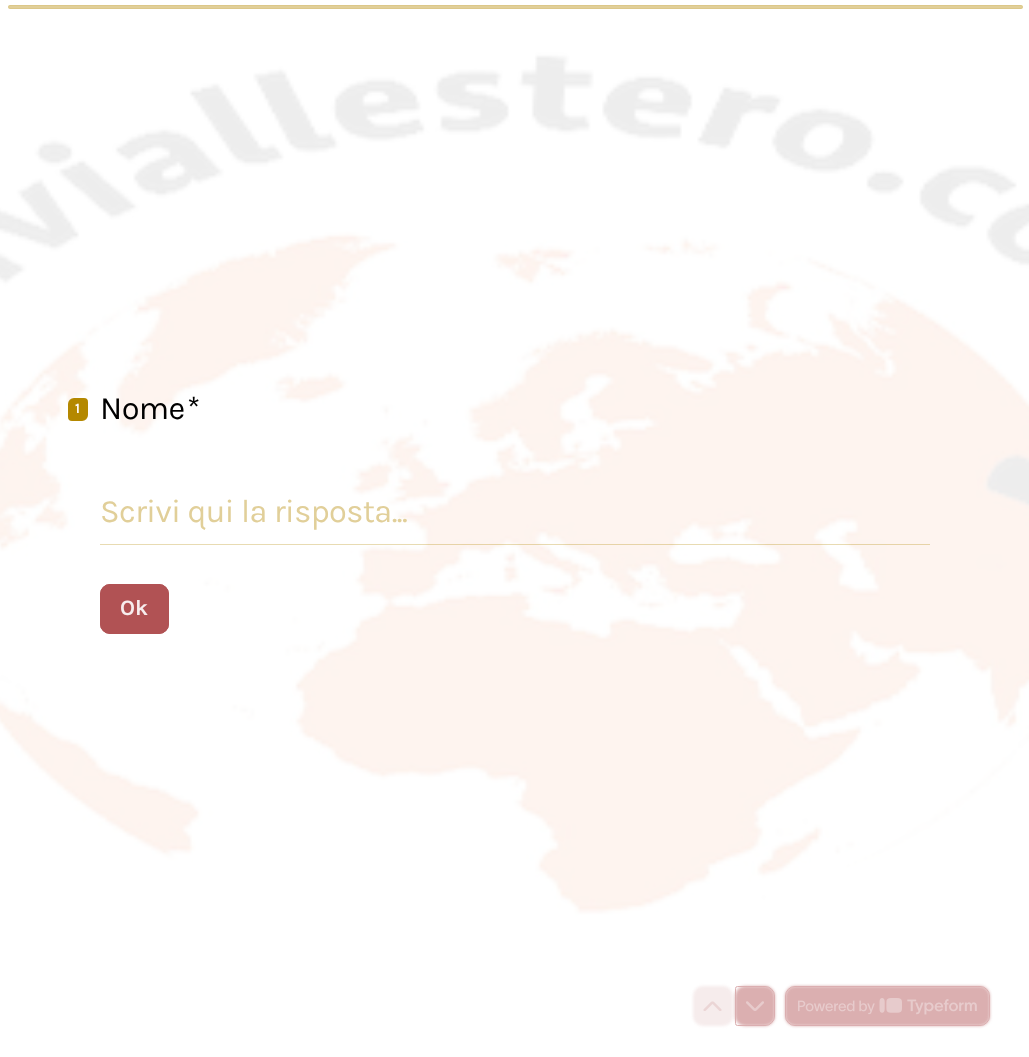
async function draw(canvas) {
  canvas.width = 1029
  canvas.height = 1057
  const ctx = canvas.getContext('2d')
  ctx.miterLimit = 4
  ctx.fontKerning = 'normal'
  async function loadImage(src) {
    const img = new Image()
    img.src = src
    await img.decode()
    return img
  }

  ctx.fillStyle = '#fff'
  ctx.fillRect(0, 0, 1029, 1057)
  ctx.drawImage(await loadImage('image0.png'), 0, 0, 1029, 1057)
  ctx.fillStyle = '#e1cf99'
  ctx.beginPath()
  ctx.roundRect(8, 5, 1015, 4, 2)
  ctx.fill()
  ctx.beginPath()
  ctx.roundRect(8.5, 5.5, 1014, 3, 1.5)
  ctx.strokeStyle = '#b488001a'
  ctx.stroke()
  ctx.fillStyle = '#b48800'
  ctx.beginPath()
  ctx.roundRect(68, 398, 20, 23, [6, 4, 6, 4])
  ctx.fill()
  ctx.font = 'bold 14px Karla'
  ctx.fillStyle = '#fefbfa'
  ctx.fillText('1', 75, 413)
  ctx.letterSpacing = '-0.6px'
  ctx.font = '32.5px Karla'
  ctx.fillStyle = '#000'
  ctx.fillText('Nome', 100, 419)
  ctx.fillText('*', 187, 419)
  ctx.save()
  ctx.beginPath()
  ctx.moveTo(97, 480)
  ctx.lineTo(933, 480)
  ctx.lineTo(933, 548)
  ctx.lineTo(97, 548)
  ctx.closePath()
  ctx.moveTo(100, 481)
  ctx.lineTo(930, 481)
  ctx.lineTo(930, 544)
  ctx.lineTo(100, 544)
  ctx.closePath()
  ctx.clip('evenodd')
  ctx.fillStyle = '#b488004d'
  ctx.filter = 'blur(0.5px)'
  ctx.beginPath()
  ctx.rect(100, 483, 830, 62)
  ctx.fill()
  ctx.filter = 'none'
  ctx.restore()
  ctx.fillStyle = '#e1cf99'
  ctx.fillText('Scrivi qui la risposta...', 100, 522)
  ctx.beginPath()
  ctx.roundRect(100.5, 584.5, 68, 49, 9.5)
  ctx.strokeStyle = '#b15254'
  ctx.stroke()
  ctx.fillStyle = '#b15254'
  ctx.filter = 'blur(0.5px)'
  ctx.beginPath()
  ctx.roundRect(100, 584, 69, 50, 10)
  ctx.fill()
  ctx.filter = 'none'
  ctx.letterSpacing = '0px'
  ctx.font = 'bold 22px Karla'
  ctx.fillStyle = '#f7edee'
  ctx.fillText('Ok', 120, 615)
  ctx.fillStyle = '#dbafb03d'
  ctx.filter = 'blur(1.5px)'
  ctx.beginPath()
  ctx.roundRect(693, 986, 40, 40, 10)
  ctx.fill()
  ctx.filter = 'none'
  ctx.drawImage(await loadImage('image1.png'), 703, 1001, 19, 10)
  ctx.beginPath()
  ctx.roundRect(735.5, 986.5, 39, 39, [2, 9.5, 9.5, 2])
  ctx.strokeStyle = '#dbafb0'
  ctx.stroke()
  ctx.fillStyle = '#dbafb0'
  ctx.filter = 'blur(1.5px)'
  ctx.beginPath()
  ctx.roundRect(735, 986, 40, 40, 10)
  ctx.fill()
  ctx.filter = 'none'
  ctx.drawImage(await loadImage('image2.png'), 746, 1001, 18, 10)
  ctx.beginPath()
  ctx.roundRect(785.5, 986.5, 204, 39, 9.5)
  ctx.stroke()
  ctx.filter = 'blur(1.5px)'
  ctx.beginPath()
  ctx.roundRect(785, 986, 205, 40, 10)
  ctx.fill()
  ctx.filter = 'none'
  ctx.drawImage(await loadImage('image3.png'), 798, 998, 179, 17)
}

draw(document.querySelector('canvas'))
